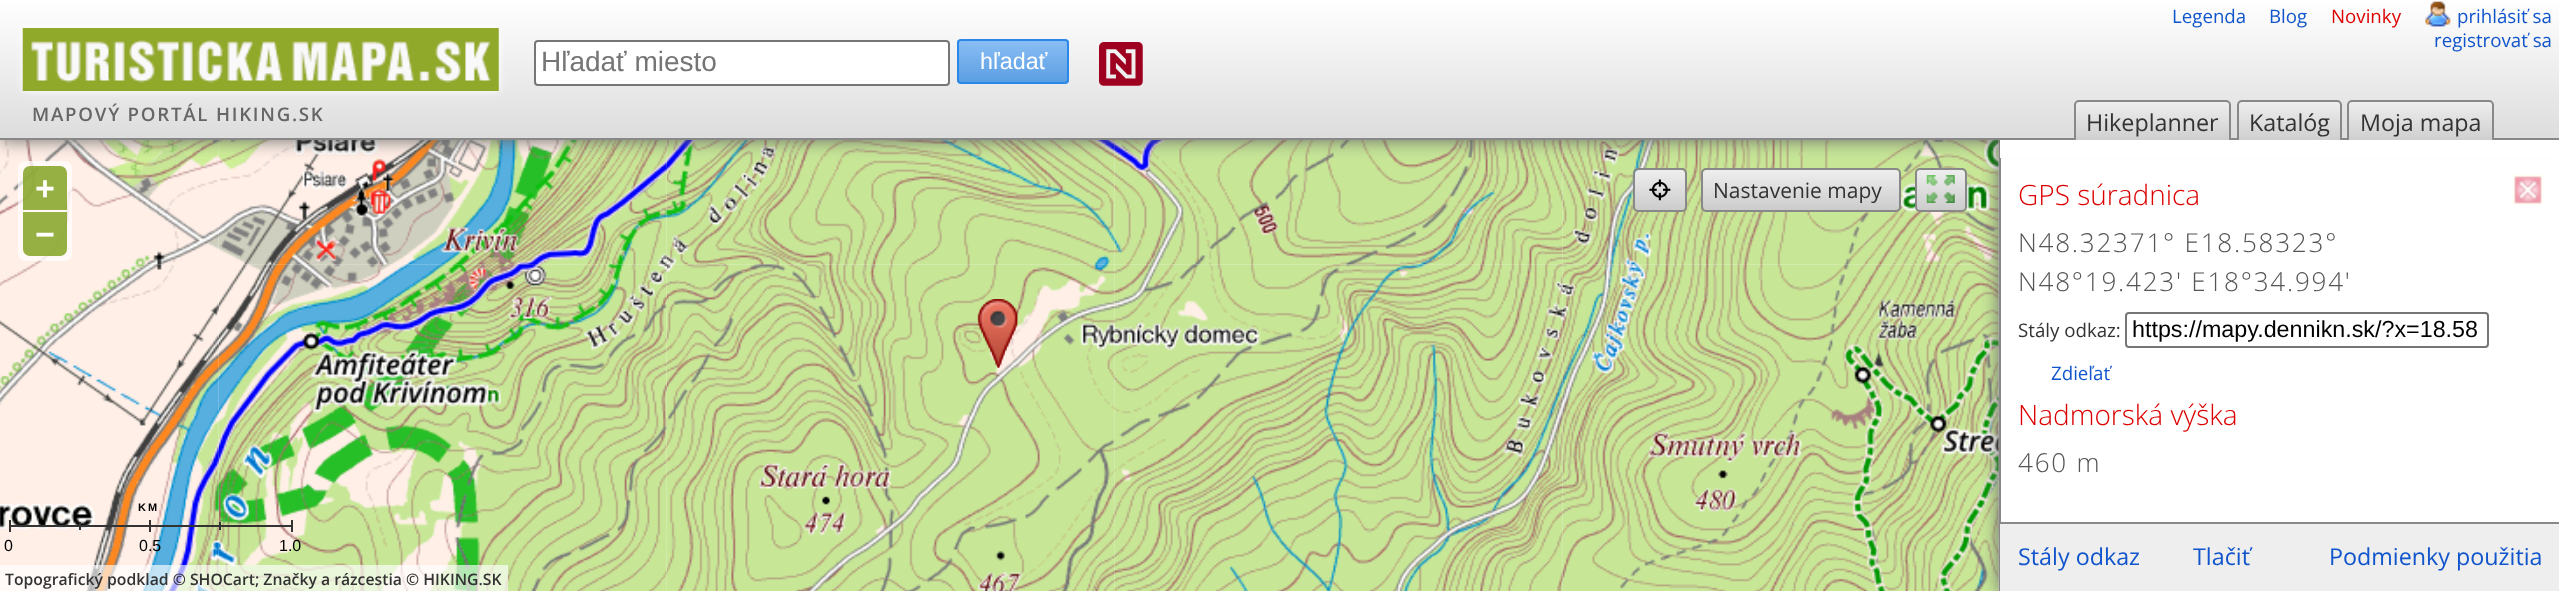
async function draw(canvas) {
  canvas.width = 2559
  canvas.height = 591
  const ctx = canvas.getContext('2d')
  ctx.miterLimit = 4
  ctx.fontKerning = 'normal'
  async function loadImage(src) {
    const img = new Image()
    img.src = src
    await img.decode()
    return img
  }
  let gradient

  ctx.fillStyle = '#fff'
  ctx.fillRect(0, 0, 2559, 591)
  ctx.drawImage(await loadImage('image10.png'), 666, 264, 449, 327)
  ctx.drawImage(await loadImage('image5.png'), 666, 140, 449, 125)
  ctx.drawImage(await loadImage('image9.png'), 218, 264, 449, 327)
  ctx.drawImage(await loadImage('image4.png'), 218, 140, 449, 125)
  ctx.drawImage(await loadImage('image8.png'), 0, 264, 219, 327)
  ctx.drawImage(await loadImage('image3.png'), 0, 140, 219, 125)
  ctx.drawImage(await loadImage('image11.png'), 1114, 264, 449, 327)
  ctx.drawImage(await loadImage('image6.png'), 1114, 140, 449, 125)
  ctx.drawImage(await loadImage('image12.png'), 1562, 264, 437, 327)
  ctx.drawImage(await loadImage('image7.png'), 1562, 140, 437, 125)
  ctx.drawImage(await loadImage('image14.png'), 666, 140, 449, 32)
  ctx.drawImage(await loadImage('image17.png'), 218, 264, 323, 201)
  ctx.drawImage(await loadImage('image13.png'), 516, 159, 151, 106)
  ctx.drawImage(await loadImage('image15.png'), 1114, 140, 57, 32)
  ctx.fillStyle = '#ffffffb3'
  ctx.beginPath()
  ctx.roundRect(18, 161, 54, 100, 7)
  ctx.fill()
  ctx.fillStyle = '#7c9e15cc'
  ctx.beginPath()
  ctx.roundRect(23, 166, 44, 44, [7, 7, 0, 0])
  ctx.fill()
  ctx.drawImage(await loadImage('image19.png'), 1842, 337, 157, 254)
  ctx.save()
  ctx.beginPath()
  ctx.rect(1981, 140, 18, 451)
  ctx.clip()
  ctx.fillStyle = '#666'
  ctx.filter = 'blur(9px)'
  ctx.beginPath()
  ctx.rect(1999, 140, 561, 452)
  ctx.fill()
  ctx.filter = 'none'
  ctx.restore()
  ctx.fillStyle = '#888'
  ctx.fillRect(1999, 140, 2, 451)
  ctx.fillStyle = '#666'
  ctx.filter = 'blur(9px)'
  ctx.beginPath()
  ctx.rect(0, 0, 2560, 140)
  ctx.fill()
  ctx.filter = 'none'
  gradient = ctx.createLinearGradient(0, 0, 0, 138)
  gradient.addColorStop(0, '#fff')
  gradient.addColorStop(1, '#ddd')
  ctx.fillStyle = gradient
  ctx.fillRect(0, 0, 2559, 138)
  ctx.fillStyle = '#888'
  ctx.fillRect(0, 138, 2559, 2)
  ctx.font = '18.7px Open Sans'
  ctx.fillStyle = '#15c'
  ctx.fillText('Legenda', 2172, 23)
  ctx.fillText('Blog', 2269, 23)
  ctx.fillStyle = '#d00'
  ctx.fillText('Novinky', 2331, 23)
  ctx.drawImage(await loadImage('image0.png'), 2425, 1, 26, 26)
  ctx.fillStyle = '#15c'
  ctx.fillText('prihlásiť sa', 2457, 23)
  ctx.fillText('registrovať sa', 2434, 47)
  ctx.fillStyle = '#fff'
  ctx.beginPath()
  ctx.roundRect(535, 41, 414, 44, 3)
  ctx.fill()
  ctx.strokeStyle = '#767676'
  ctx.lineWidth = 2
  ctx.stroke()
  ctx.font = '28px Liberation Sans'
  ctx.fillStyle = '#757575'
  ctx.fillText('Hľadať miesto', 541, 71)
  ctx.save()
  ctx.beginPath()
  ctx.roundRect(957, 39, 112, 45, 4)
  ctx.clip()
  gradient = ctx.createLinearGradient(959, 40, 959, 82)
  gradient.addColorStop(0, '#8abef4')
  gradient.addColorStop(1, '#5b9ee3')
  ctx.fillStyle = gradient
  ctx.fillRect(957, 40, 112, 42)
  ctx.restore()
  ctx.beginPath()
  ctx.roundRect(958, 40, 110, 43, 3)
  ctx.strokeStyle = '#2a89e8'
  ctx.stroke()
  ctx.font = '23.3px Liberation Sans'
  ctx.fillStyle = '#fff'
  ctx.fillText('hľadať', 980, 69)
  ctx.drawImage(await loadImage('image1.png'), 1099, 42, 44, 44)
  ctx.filter = 'blur(4.5px)'
  ctx.beginPath()
  ctx.rect(23, 28, 476, 63)
  ctx.fill()
  ctx.filter = 'none'
  ctx.drawImage(await loadImage('image2.png'), 22, 28, 477, 63)
  ctx.letterSpacing = '1.75px'
  ctx.font = '600 18.7px Open Sans'
  ctx.fillStyle = '#666'
  ctx.fillText('MAPOVÝ PORTÁL HIKING.SK', 32, 121)
  gradient = ctx.createLinearGradient(2076, 102, 2076, 144)
  gradient.addColorStop(0, '#eee')
  gradient.addColorStop(1, '#ccc')
  ctx.fillStyle = gradient
  ctx.beginPath()
  ctx.roundRect(2076, 102, 154, 42, 4)
  ctx.fill()
  ctx.beginPath()
  ctx.roundRect(2075, 101, 155, 43, 4)
  ctx.strokeStyle = '#888'
  ctx.stroke()
  ctx.letterSpacing = '0px'
  ctx.font = '23.3px Open Sans'
  ctx.fillStyle = '#333'
  ctx.fillText('Hikeplanner', 2086, 131)
  gradient = ctx.createLinearGradient(2238, 102, 2238, 144)
  gradient.addColorStop(0, '#eee')
  gradient.addColorStop(1, '#ccc')
  ctx.fillStyle = gradient
  ctx.beginPath()
  ctx.roundRect(2238, 102, 102, 42, 4)
  ctx.fill()
  ctx.beginPath()
  ctx.roundRect(2238, 101, 103, 43, 4)
  ctx.stroke()
  ctx.fillStyle = '#333'
  ctx.fillText('Katalóg', 2249, 131)
  gradient = ctx.createLinearGradient(2349, 102, 2349, 144)
  gradient.addColorStop(0, '#eee')
  gradient.addColorStop(1, '#ccc')
  ctx.fillStyle = gradient
  ctx.beginPath()
  ctx.roundRect(2349, 102, 143, 42, 4)
  ctx.fill()
  ctx.beginPath()
  ctx.roundRect(2348, 101, 145, 43, 4)
  ctx.stroke()
  ctx.fillStyle = '#333'
  ctx.fillText('Moja mapa', 2360, 131)
  ctx.fillStyle = '#fff'
  ctx.fillRect(2000, 140, 559, 18)
  ctx.drawImage(await loadImage('image16.png'), 166, 441, 53, 150)
  ctx.drawImage(await loadImage('image18.png'), 977, 299, 41, 69)
  ctx.drawImage(await loadImage('image20.png'), 977, 299, 41, 69)
  ctx.drawImage(await loadImage('image21.png'), 977, 299, 41, 69)
  ctx.font = 'bold 35px Open Sans'
  ctx.fillText('+', 35, 201)
  ctx.fillStyle = '#7c9e15cc'
  ctx.beginPath()
  ctx.roundRect(23, 212, 44, 44, [0, 0, 7, 7])
  ctx.fill()
  ctx.fillStyle = '#fff'
  ctx.fillText('−', 35, 247)
  ctx.letterSpacing = '2px'
  ctx.font = 'bold 11px Liberation Sans'
  ctx.fillStyle = '#000'
  ctx.fillText('KM', 138, 511)
  ctx.fillStyle = '#333'
  ctx.fillRect(9, 520, 2, 12)
  ctx.fillRect(79, 522, 2, 8)
  ctx.fillRect(149, 520, 2, 12)
  ctx.fillRect(151, 525, 140, 2)
  ctx.fillRect(219, 522, 2, 8)
  ctx.fillRect(291, 520, 2, 12)
  ctx.fillRect(9, 525, 70, 2)
  ctx.fillRect(79, 525, 70, 2)
  ctx.letterSpacing = '0px'
  ctx.font = '16px Liberation Sans'
  ctx.fillStyle = '#000'
  ctx.fillText('0', 4, 551)
  ctx.fillText('0.5', 139, 551)
  ctx.fillText('1.0', 279, 551)
  ctx.fillStyle = '#ffffffa6'
  ctx.fillRect(0, 565, 508, 26)
  ctx.font = '600 15.75px Open Sans'
  ctx.fillStyle = '#333'
  ctx.fillText('Topografický podklad © SHOCart; Značky a rázcestia © HIKING.SK', 5, 585)
  gradient = ctx.createLinearGradient(1635, 170, 1635, 210)
  gradient.addColorStop(0, '#eee')
  gradient.addColorStop(1, '#ccc')
  ctx.fillStyle = gradient
  ctx.beginPath()
  ctx.roundRect(1635, 170, 50, 40, 4)
  ctx.fill()
  ctx.drawImage(await loadImage('image22.png'), 1649, 179, 22, 22)
  ctx.beginPath()
  ctx.roundRect(1634, 169, 52, 42, 4)
  ctx.stroke()
  gradient = ctx.createLinearGradient(1703, 170, 1703, 210)
  gradient.addColorStop(0, '#eee')
  gradient.addColorStop(1, '#ccc')
  ctx.fillStyle = gradient
  ctx.beginPath()
  ctx.roundRect(1703, 170, 196, 40, 4)
  ctx.fill()
  ctx.beginPath()
  ctx.roundRect(1702, 169, 198, 42, 4)
  ctx.stroke()
  ctx.font = '21px Open Sans'
  ctx.fillStyle = '#333'
  ctx.fillText('Nastavenie mapy', 1713, 198)
  gradient = ctx.createLinearGradient(1916, 170, 1916, 210)
  gradient.addColorStop(0, '#eee')
  gradient.addColorStop(1, '#ccc')
  ctx.fillStyle = gradient
  ctx.beginPath()
  ctx.roundRect(1916, 170, 49, 40, 4)
  ctx.fill()
  ctx.drawImage(await loadImage('image23.png'), 1926, 175, 29, 28)
  ctx.beginPath()
  ctx.roundRect(1916, 169, 50, 42, 4)
  ctx.stroke()
  ctx.font = '300 28px Open Sans'
  ctx.fillStyle = '#d00'
  ctx.fillText('GPS súradnica', 2018, 205)
  ctx.letterSpacing = '1.75px'
  ctx.font = '300 26.1px Open Sans'
  ctx.fillStyle = '#555'
  ctx.fillText('N48.32371° E18.58323°', 2018, 252)
  ctx.fillText('N48°19.423\' E18°34.994\'', 2018, 291)
  ctx.letterSpacing = '0px'
  ctx.font = '18.7px Open Sans'
  ctx.fillStyle = '#333'
  ctx.fillText('Stály odkaz:', 2018, 337)
  ctx.beginPath()
  ctx.roundRect(2126, 313, 362, 34, 3)
  ctx.strokeStyle = '#767676'
  ctx.stroke()
  ctx.font = '23.3px Liberation Sans'
  ctx.fillStyle = '#000'
  ctx.fillText('https://mapy.dennikn.sk/?x=18.58', 2132, 337)
  ctx.font = '18.7px Open Sans'
  ctx.fillStyle = '#15c'
  ctx.fillText('Zdieľať', 2051, 380)
  ctx.font = '300 28px Open Sans'
  ctx.fillStyle = '#d00'
  ctx.fillText('Nadmorská výška', 2018, 425)
  ctx.letterSpacing = '1.75px'
  ctx.font = '300 26.1px Open Sans'
  ctx.fillStyle = '#555'
  ctx.fillText('460 m', 2018, 472)
  ctx.drawImage(await loadImage('image24.png'), 2513, 175, 30, 30)
  ctx.fillStyle = '#eee'
  ctx.fillRect(2000, 524, 559, 67)
  ctx.fillStyle = '#888'
  ctx.fillRect(2000, 522, 559, 2)
  ctx.letterSpacing = '0px'
  ctx.font = '23.3px Open Sans'
  ctx.fillStyle = '#15c'
  ctx.fillText('Stály odkaz', 2018, 565)
  ctx.fillText('Tlačiť', 2193, 565)
  ctx.fillText('Podmienky použitia', 2329, 565)
}

draw(document.querySelector('canvas'))
